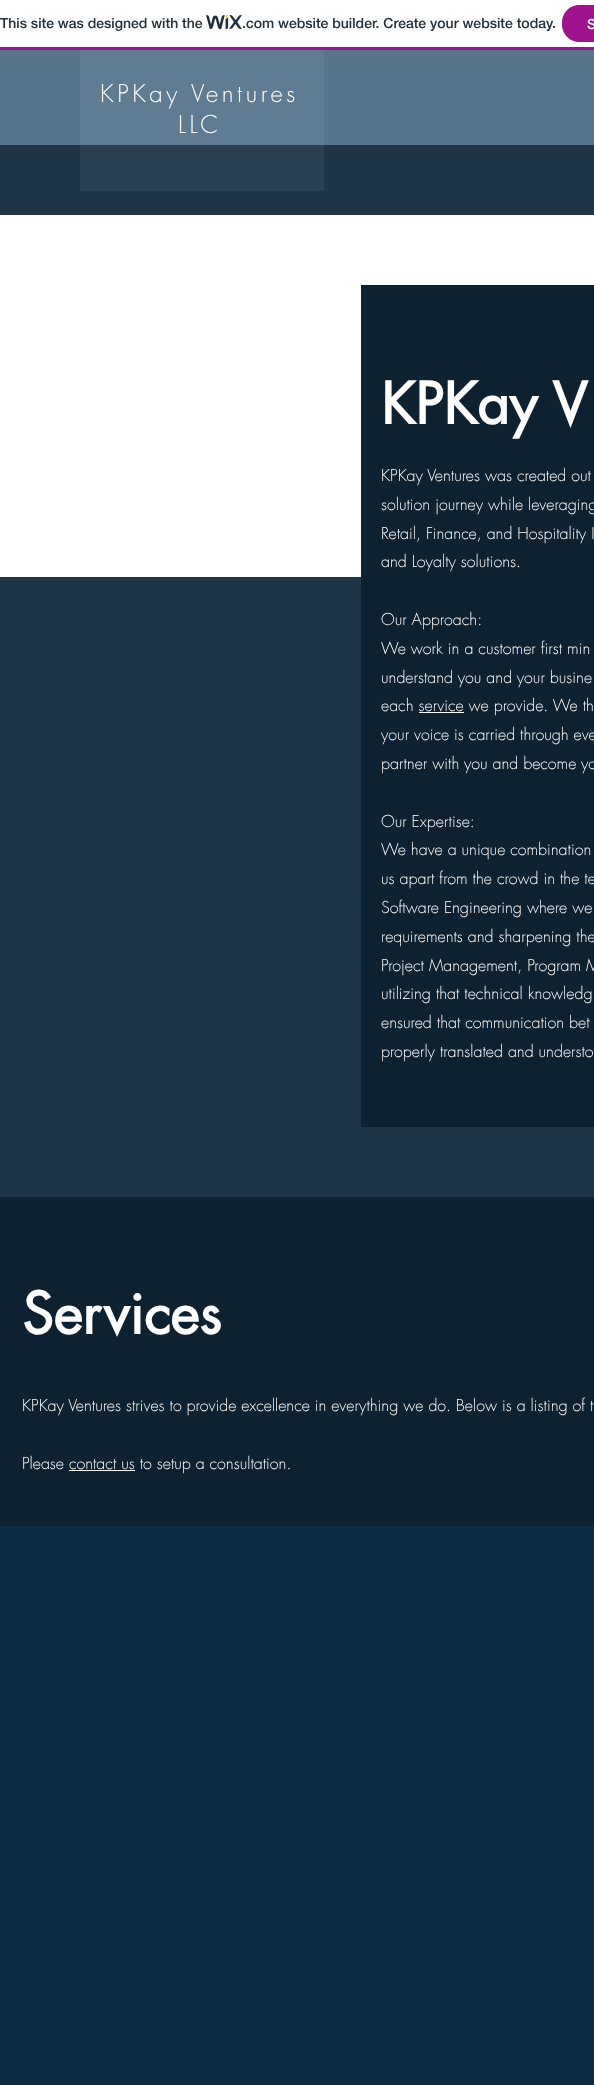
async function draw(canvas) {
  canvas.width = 594
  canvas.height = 2085
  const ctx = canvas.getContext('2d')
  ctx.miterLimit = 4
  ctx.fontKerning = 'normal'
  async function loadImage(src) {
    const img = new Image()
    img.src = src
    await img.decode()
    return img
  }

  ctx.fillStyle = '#fff'
  ctx.fillRect(0, 0, 594, 2085)
  ctx.fillStyle = '#a0138e'
  ctx.fillRect(0, 47, 594, 3)
  ctx.font = '500 14px "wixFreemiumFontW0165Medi"'
  ctx.fillStyle = '#20303c'
  ctx.fillText('This site was designed with the', 0, 28)
  ctx.drawImage(await loadImage('image0.png'), 206, 15, 36, 15)
  ctx.fillText('.com website builder. Create your website today.', 242, 28)
  ctx.fillStyle = '#a0138e'
  ctx.beginPath()
  ctx.roundRect(562.5, 5.5, 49, 36, 16.5)
  ctx.fill()
  ctx.strokeStyle = '#a0138e'
  ctx.stroke()
  ctx.fillStyle = '#fff'
  ctx.fillText('S', 587, 29)
  ctx.fillStyle = '#58758c'
  ctx.fillRect(0, 50, 594, 95)
  ctx.fillStyle = '#607c92'
  ctx.fillRect(80, 50, 244, 95)
  ctx.letterSpacing = '3.6px'
  ctx.font = '300 24px futura'
  ctx.fillStyle = '#fff'
  ctx.fillText('KPKay Ventures', 100, 102)
  ctx.fillText('LLC', 178, 133)
  ctx.fillStyle = '#1f3546'
  ctx.fillRect(0, 145, 594, 1052)
  ctx.fillStyle = '#2a3f4f'
  ctx.fillRect(80, 145, 244, 46)
  ctx.fillStyle = '#fff'
  ctx.fillRect(0, 215, 594, 362)
  ctx.fillStyle = '#0d2130'
  ctx.fillRect(361, 285, 233, 842)
  ctx.letterSpacing = '0px'
  ctx.font = 'bold 56px futura'
  ctx.fillStyle = '#fff'
  ctx.fillText('KPKay V', 381, 424)
  ctx.font = '300 16px futura'
  ctx.fillText('KPKay Ventures was created out', 381, 481)
  ctx.fillText('solution journey while leveraging', 381, 510)
  ctx.fillText('Retail, Finance, and Hospitality I', 381, 539)
  ctx.fillText('and Loyalty solutions.', 381, 567)
  ctx.fillText('Our Approach:', 381, 625)
  ctx.fillText('We work in a customer first min', 381, 654)
  ctx.fillText('understand you and your busine', 381, 683)
  ctx.fillText('each service we provide. We th', 381, 711)
  ctx.fillRect(419, 712, 45, 1)
  ctx.fillText('your voice is carried through eve', 381, 740)
  ctx.fillText('partner with you and become yo', 381, 769)
  ctx.fillText('Our Expertise:', 381, 827)
  ctx.fillText('We have a unique combination', 381, 855)
  ctx.fillText('us apart from the crowd in the te', 381, 884)
  ctx.fillText('Software Engineering where we', 381, 913)
  ctx.fillText('requirements and sharpening the', 381, 942)
  ctx.fillText('Project Management, Program M', 381, 971)
  ctx.fillText('utilizing that technical knowledg', 381, 999)
  ctx.fillText('ensured that communication bet', 381, 1028)
  ctx.fillText('properly translated and understo', 381, 1057)
  ctx.fillStyle = '#0d2130'
  ctx.fillRect(0, 1197, 594, 329)
  ctx.font = 'bold 56px futura'
  ctx.fillStyle = '#fff'
  ctx.fillText('Services', 22, 1334)
  ctx.font = '300 16px futura'
  ctx.fillText('KPKay Ventures strives to provide excellence in everything we do. Below is a listing of t', 22, 1411)
  ctx.fillText('Please contact us to setup a consultation.', 22, 1469)
  ctx.fillRect(69, 1470, 66, 1)
  ctx.fillStyle = '#0e2b42'
  ctx.fillRect(0, 1526, 594, 559)
}

draw(document.querySelector('canvas'))
